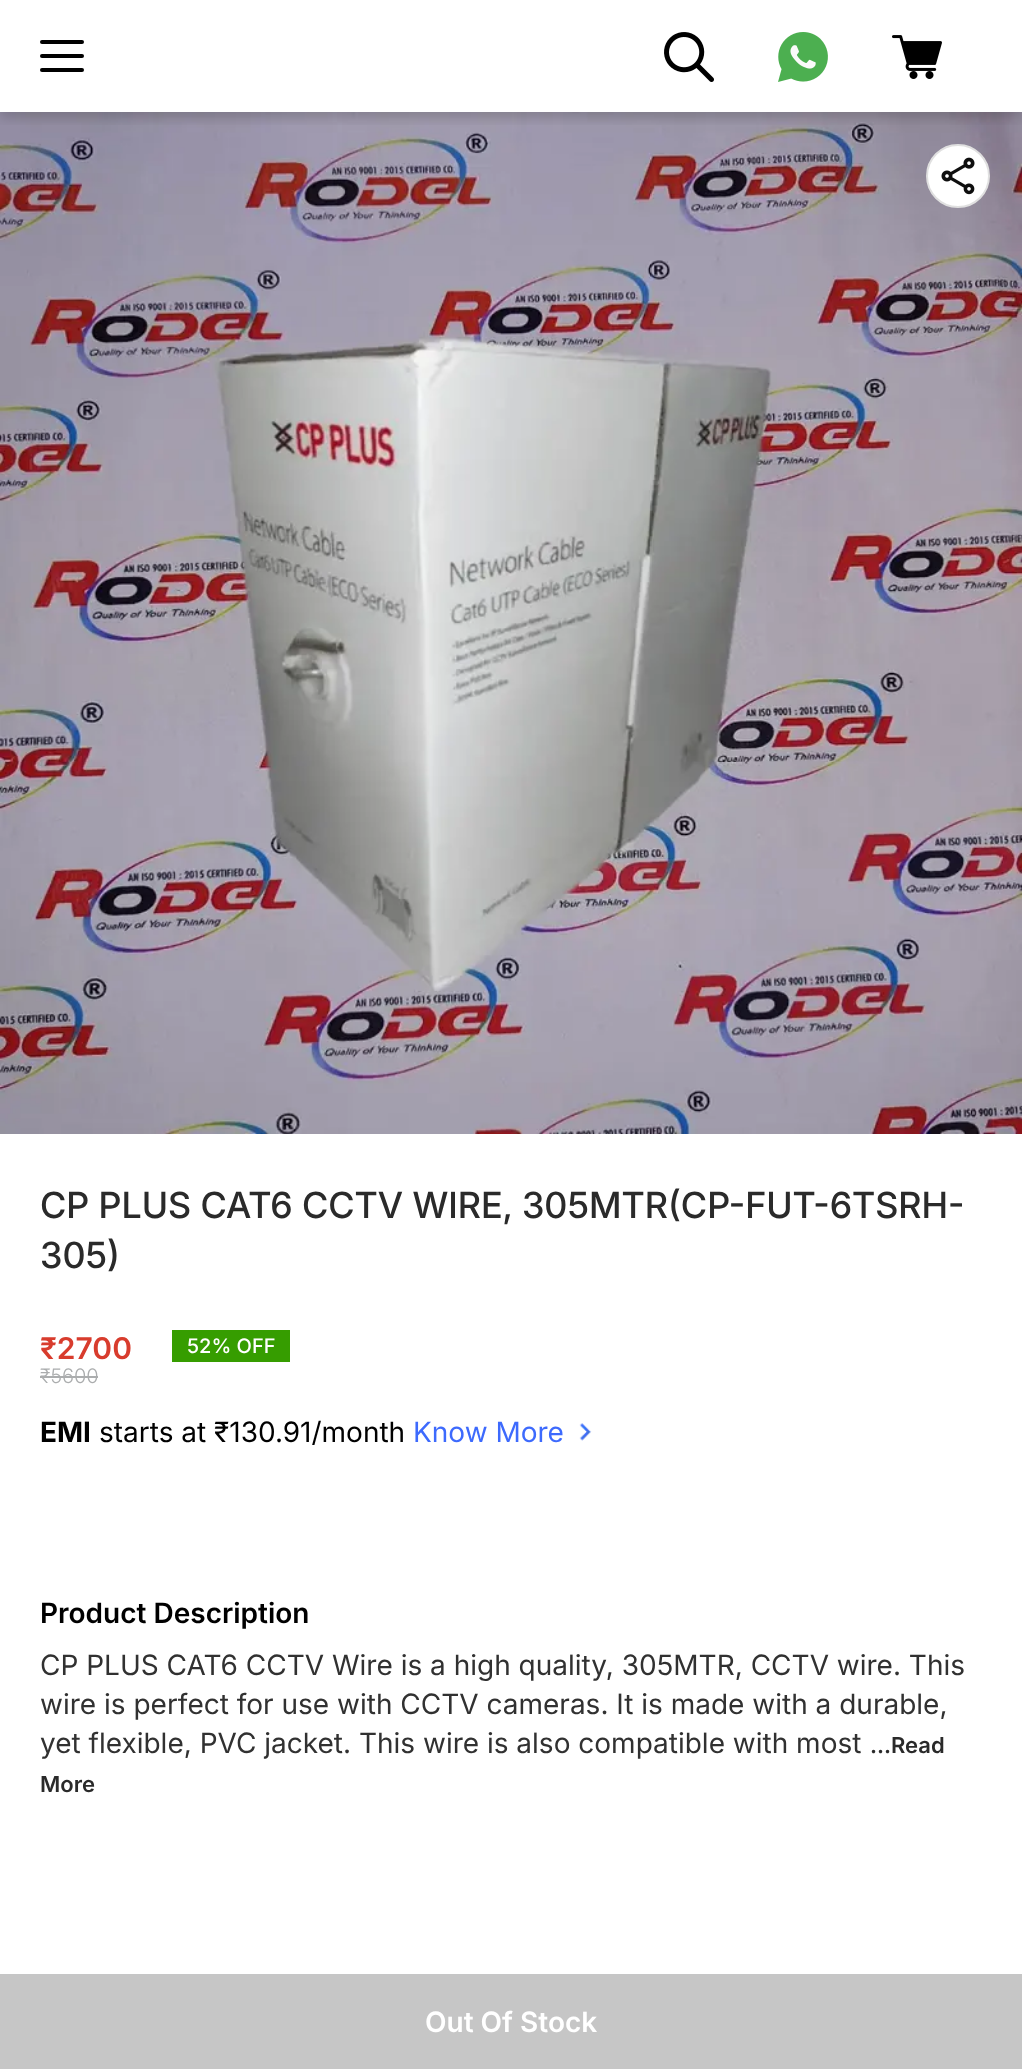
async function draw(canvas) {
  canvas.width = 1022
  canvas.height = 2069
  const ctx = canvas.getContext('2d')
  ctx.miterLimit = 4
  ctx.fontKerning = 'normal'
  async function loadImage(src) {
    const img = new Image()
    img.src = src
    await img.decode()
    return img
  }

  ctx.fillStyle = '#fff'
  ctx.fillRect(0, 0, 1022, 2069)
  ctx.drawImage(await loadImage('image4.png'), 0, 112, 1022, 1022)
  ctx.save()
  ctx.beginPath()
  ctx.rect(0, 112, 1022, 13)
  ctx.clip()
  ctx.fillStyle = '#00000029'
  ctx.filter = 'blur(6px)'
  ctx.beginPath()
  ctx.rect(0, 6, 1022, 112)
  ctx.fill()
  ctx.filter = 'none'
  ctx.restore()
  ctx.fillStyle = '#000'
  ctx.beginPath()
  ctx.roundRect(40, 40, 44, 4, 2)
  ctx.fill()
  ctx.beginPath()
  ctx.roundRect(40, 54, 44, 4, 2)
  ctx.fill()
  ctx.beginPath()
  ctx.roundRect(40, 68, 44, 4, 2)
  ctx.fill()
  ctx.drawImage(await loadImage('image0.png'), 664, 32, 50, 50)
  ctx.drawImage(await loadImage('image1.png'), 778, 32, 50, 50)
  ctx.drawImage(await loadImage('image2.png'), 892, 35, 50, 44)
  ctx.font = '500 36px Inter'
  ctx.fillStyle = '#2a2a2a'
  ctx.fillText('CP PLUS CAT6 CCTV WIRE, 305MTR(CP-FUT-6TSRH-', 40, 1218)
  ctx.fillText('305)', 40, 1268)
  ctx.font = '600 30px Inter'
  ctx.fillStyle = '#d83c2d'
  ctx.fillText('₹2700', 40, 1359)
  ctx.font = '300 20px Inter'
  ctx.fillStyle = '#abadae'
  ctx.fillText('₹5600', 40, 1383)
  ctx.fillRect(40, 1376, 58, 2)
  ctx.fillStyle = '#369d00'
  ctx.fillRect(172, 1330, 118, 32)
  ctx.font = '500 20px "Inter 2"'
  ctx.fillStyle = '#fff'
  ctx.fillText('52% OFF', 187, 1353)
  ctx.font = 'bold 28px Inter'
  ctx.fillStyle = '#000'
  ctx.fillText('EMI', 40, 1442)
  ctx.font = '28px Inter'
  ctx.fillText('starts at ₹130.91/month', 99, 1442)
  ctx.fillStyle = '#3d6afd'
  ctx.fillText('Know More', 413, 1442)
  ctx.drawImage(await loadImage('image3.png'), 579, 1423, 13, 18)
  ctx.font = '600 28px Inter'
  ctx.fillStyle = '#000'
  ctx.fillText('Product Description', 40, 1623)
  ctx.font = '28px Inter'
  ctx.fillStyle = '#313131'
  ctx.fillText('CP PLUS CAT6 CCTV Wire is a high quality, 305MTR, CCTV wire. This', 40, 1675)
  ctx.fillText('wire is perfect for use with CCTV cameras. It is made with a durable,', 40, 1714)
  ctx.fillText('yet flexible, PVC jacket. This wire is also compatible with most', 40, 1753)
  ctx.font = '600 22px Inter'
  ctx.fillStyle = '#2a2a2a'
  ctx.fillText('...Read', 870, 1753)
  ctx.fillText('More', 40, 1792)
  ctx.fillStyle = '#fff'
  ctx.beginPath()
  ctx.arc(958, 176, 31, 0, 2 * Math.PI)
  ctx.fill()
  ctx.strokeStyle = '#e0e0e0'
  ctx.lineWidth = 2
  ctx.stroke()
  ctx.drawImage(await loadImage('image5.png'), 941, 157, 34, 38)
  ctx.fillStyle = '#c6c6c6'
  ctx.fillRect(0, 1974, 1022, 95)
  ctx.font = '600 28px Inter'
  ctx.fillStyle = '#fff'
  ctx.fillText('Out Of Stock', 425, 2032)
}

draw(document.querySelector('canvas'))
